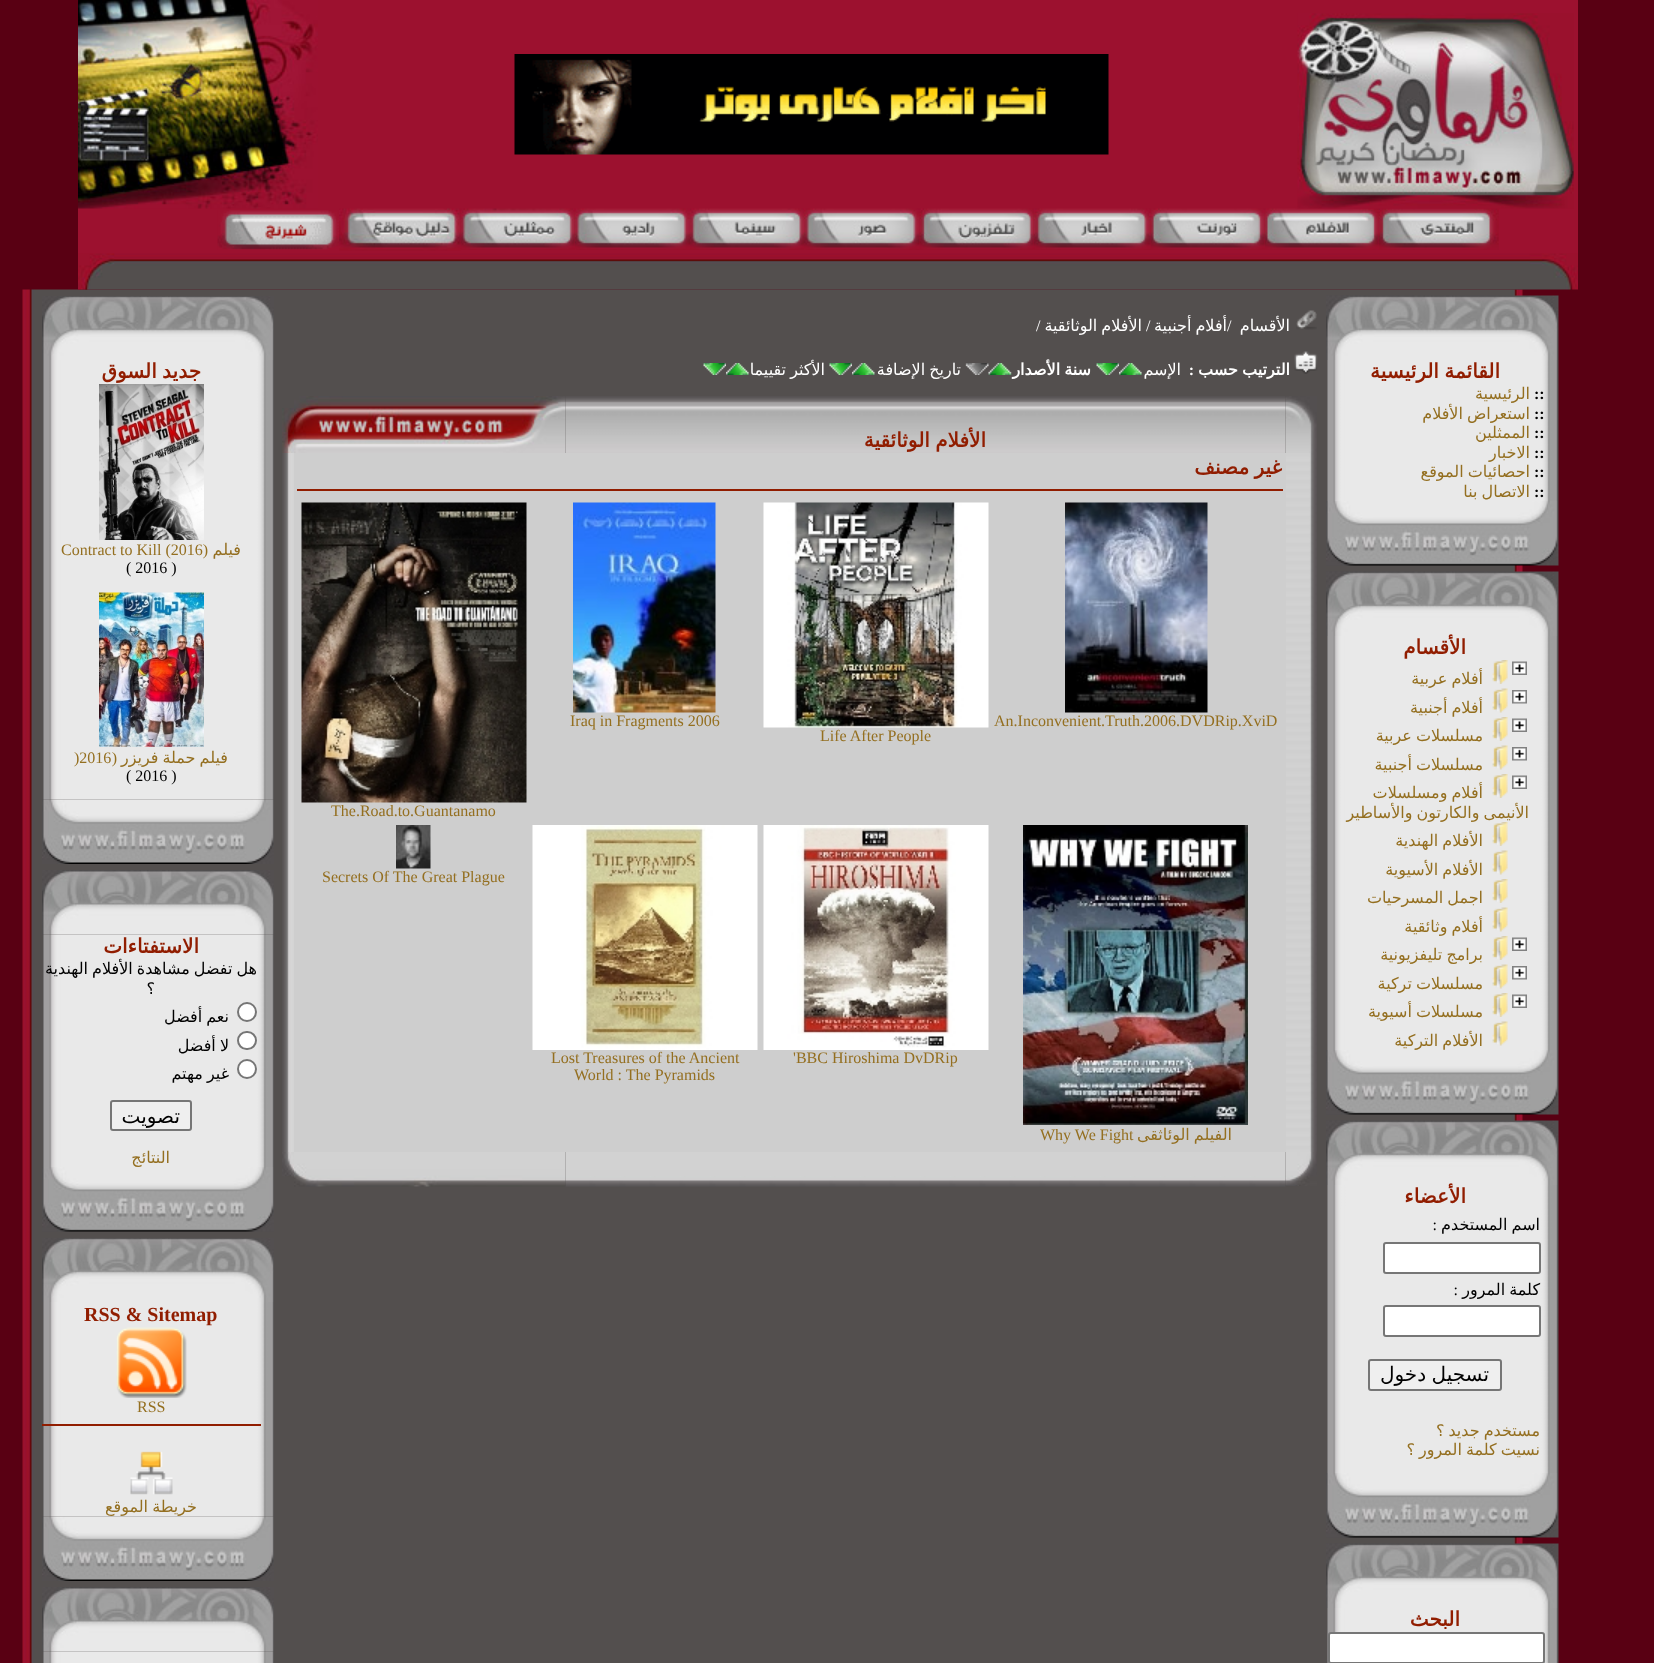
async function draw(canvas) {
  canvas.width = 1654
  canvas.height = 1663
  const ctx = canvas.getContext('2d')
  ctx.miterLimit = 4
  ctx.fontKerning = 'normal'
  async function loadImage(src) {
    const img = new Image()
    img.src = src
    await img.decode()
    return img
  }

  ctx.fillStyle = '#590013'
  ctx.fillRect(0, 0, 1654, 1663)
  ctx.fillStyle = '#9c112f'
  ctx.fillRect(78, 0, 1500, 254)
  ctx.drawImage(await loadImage('image3.png'), 1378, 208, 121, 42)
  ctx.drawImage(await loadImage('image4.png'), 1264, 208, 115, 42)
  ctx.drawImage(await loadImage('image0.png'), 1297, 13, 277, 196)
  ctx.drawImage(await loadImage('image1.png'), 514, 54, 595, 101)
  ctx.drawImage(await loadImage('image2.png'), 78, 0, 240, 209)
  ctx.drawImage(await loadImage('image5.png'), 1150, 208, 115, 42)
  ctx.drawImage(await loadImage('image6.png'), 1033, 208, 118, 42)
  ctx.drawImage(await loadImage('image7.png'), 919, 208, 115, 42)
  ctx.drawImage(await loadImage('image8.png'), 804, 208, 116, 42)
  ctx.drawImage(await loadImage('image9.png'), 690, 208, 114, 42)
  ctx.drawImage(await loadImage('image10.png'), 574, 208, 116, 42)
  ctx.drawImage(await loadImage('image11.png'), 460, 208, 115, 42)
  ctx.drawImage(await loadImage('image12.png'), 339, 208, 122, 43)
  ctx.drawImage(await loadImage('image13.png'), 217, 210, 122, 40)
  ctx.drawImage(await loadImage('image15.png'), 22, 289, 1501, 1374)
  ctx.drawImage(await loadImage('image14.png'), 78, 253, 1500, 37)
  ctx.drawImage(await loadImage('image16.png'), 1326, 295, 233, 65)
  ctx.drawImage(await loadImage('image17.png'), 1327, 360, 232, 141)
  ctx.wordSpacing = '-1px'
  ctx.direction = 'rtl'
  ctx.font = 'bold 20px DejaVu Sans'
  ctx.fillStyle = '#911d00'
  ctx.fillText('القائمة الرئيسية', 1500, 378)
  ctx.wordSpacing = '0px'
  ctx.direction = 'ltr'
  ctx.font = 'bold 16px Liberation Serif'
  ctx.fillStyle = '#000'
  ctx.fillText('::', 1534, 399)
  ctx.direction = 'rtl'
  ctx.font = '16px DejaVu Sans'
  ctx.fillStyle = '#946f20'
  ctx.fillText('الرئيسية', 1530, 399)
  ctx.direction = 'ltr'
  ctx.font = 'bold 16px Liberation Serif'
  ctx.fillStyle = '#000'
  ctx.fillText('::', 1534, 419)
  ctx.wordSpacing = '-1px'
  ctx.direction = 'rtl'
  ctx.font = '16px DejaVu Sans'
  ctx.fillStyle = '#946f20'
  ctx.fillText('استعراض الأفلام', 1530, 419)
  ctx.wordSpacing = '0px'
  ctx.direction = 'ltr'
  ctx.font = 'bold 16px Liberation Serif'
  ctx.fillStyle = '#000'
  ctx.fillText('::', 1534, 438)
  ctx.direction = 'rtl'
  ctx.font = '16px DejaVu Sans'
  ctx.fillStyle = '#946f20'
  ctx.fillText('الممثلين', 1530, 438)
  ctx.direction = 'ltr'
  ctx.font = 'bold 16px Liberation Serif'
  ctx.fillStyle = '#000'
  ctx.fillText('::', 1534, 458)
  ctx.direction = 'rtl'
  ctx.font = '16px DejaVu Sans'
  ctx.fillStyle = '#946f20'
  ctx.fillText('الاخبار', 1530, 458)
  ctx.direction = 'ltr'
  ctx.font = 'bold 16px Liberation Serif'
  ctx.fillStyle = '#000'
  ctx.fillText('::', 1534, 477)
  ctx.wordSpacing = '-1px'
  ctx.direction = 'rtl'
  ctx.font = '16px DejaVu Sans'
  ctx.fillStyle = '#946f20'
  ctx.fillText('احصائيات الموقع', 1530, 477)
  ctx.wordSpacing = '0px'
  ctx.direction = 'ltr'
  ctx.font = 'bold 16px Liberation Serif'
  ctx.fillStyle = '#000'
  ctx.fillText('::', 1534, 497)
  ctx.wordSpacing = '-1px'
  ctx.direction = 'rtl'
  ctx.font = '16px DejaVu Sans'
  ctx.fillStyle = '#946f20'
  ctx.fillText('الاتصال بنا', 1530, 497)
  ctx.drawImage(await loadImage('image18.png'), 1326, 501, 233, 65)
  ctx.drawImage(await loadImage('image19.png'), 1326, 571, 233, 65)
  ctx.drawImage(await loadImage('image20.png'), 1327, 636, 232, 414)
  ctx.wordSpacing = '0px'
  ctx.font = 'bold 20px DejaVu Sans'
  ctx.fillStyle = '#911d00'
  ctx.fillText('الأقسام', 1466, 654)
  ctx.drawImage(await loadImage('image21.png'), 1512, 661, 15, 14)
  ctx.drawImage(await loadImage('image22.png'), 1492, 660, 16, 24)
  ctx.wordSpacing = '-1px'
  ctx.font = '16px DejaVu Sans'
  ctx.fillStyle = '#946f20'
  ctx.fillText('أفلام عربية', 1483, 684)
  ctx.drawImage(await loadImage('image23.png'), 1512, 690, 15, 14)
  ctx.drawImage(await loadImage('image24.png'), 1492, 688, 16, 25)
  ctx.fillText('أفلام أجنبية', 1483, 713)
  ctx.drawImage(await loadImage('image21.png'), 1512, 718, 15, 14)
  ctx.drawImage(await loadImage('image22.png'), 1492, 717, 16, 24)
  ctx.fillText('مسلسلات عربية', 1483, 741)
  ctx.drawImage(await loadImage('image23.png'), 1512, 747, 15, 14)
  ctx.drawImage(await loadImage('image24.png'), 1492, 745, 16, 25)
  ctx.fillText('مسلسلات أجنبية', 1483, 770)
  ctx.drawImage(await loadImage('image21.png'), 1512, 775, 15, 14)
  ctx.drawImage(await loadImage('image22.png'), 1492, 774, 16, 24)
  ctx.fillText('أفلام ومسلسلات', 1483, 798)
  ctx.fillText('الأنيمى والكارتون والأساطير', 1529, 818)
  ctx.drawImage(await loadImage('image22.png'), 1492, 822, 16, 24)
  ctx.fillText('الأفلام الهندية', 1483, 846)
  ctx.drawImage(await loadImage('image24.png'), 1492, 850, 16, 25)
  ctx.fillText('الأفلام الأسيوية', 1483, 875)
  ctx.drawImage(await loadImage('image22.png'), 1492, 879, 16, 24)
  ctx.fillText('اجمل المسرحيات', 1483, 903)
  ctx.drawImage(await loadImage('image24.png'), 1492, 907, 16, 25)
  ctx.fillText('أفلام وثائقية', 1483, 932)
  ctx.drawImage(await loadImage('image21.png'), 1512, 937, 15, 14)
  ctx.drawImage(await loadImage('image22.png'), 1492, 936, 16, 24)
  ctx.fillText('برامج تليفزيونية', 1483, 960)
  ctx.drawImage(await loadImage('image23.png'), 1512, 966, 15, 14)
  ctx.drawImage(await loadImage('image24.png'), 1492, 964, 16, 25)
  ctx.fillText('مسلسلات تركية', 1483, 989)
  ctx.drawImage(await loadImage('image21.png'), 1512, 994, 15, 14)
  ctx.drawImage(await loadImage('image22.png'), 1492, 993, 16, 24)
  ctx.fillText('مسلسلات أسيوية', 1483, 1017)
  ctx.drawImage(await loadImage('image24.png'), 1492, 1021, 16, 25)
  ctx.fillText('الأفلام التركية', 1483, 1046)
  ctx.drawImage(await loadImage('image18.png'), 1326, 1050, 233, 65)
  ctx.drawImage(await loadImage('image19.png'), 1326, 1120, 233, 65)
  ctx.drawImage(await loadImage('image25.png'), 1327, 1185, 232, 288)
  ctx.wordSpacing = '0px'
  ctx.font = 'bold 20px DejaVu Sans'
  ctx.fillStyle = '#911d00'
  ctx.fillText('الأعضاء', 1466, 1203)
  ctx.wordSpacing = '-1px'
  ctx.font = '16px DejaVu Sans'
  ctx.fillStyle = '#000'
  ctx.fillText('اسم المستخدم', 1540, 1230)
  ctx.wordSpacing = '0px'
  ctx.font = '16px Liberation Serif'
  ctx.fillText(':', 1437, 1230)
  ctx.fillStyle = '#fff'
  ctx.beginPath()
  ctx.roundRect(1384, 1243, 156, 30, 2)
  ctx.fill()
  ctx.strokeStyle = '#767676'
  ctx.lineWidth = 2
  ctx.stroke()
  ctx.wordSpacing = '-1px'
  ctx.font = '16px DejaVu Sans'
  ctx.fillStyle = '#000'
  ctx.fillText('كلمة المرور', 1540, 1295)
  ctx.wordSpacing = '0px'
  ctx.font = '16px Liberation Serif'
  ctx.fillText(':', 1458, 1295)
  ctx.fillStyle = '#fff'
  ctx.beginPath()
  ctx.roundRect(1384, 1306, 156, 30, 2)
  ctx.fill()
  ctx.stroke()
  ctx.fillStyle = '#efefef'
  ctx.beginPath()
  ctx.roundRect(1369, 1360, 132, 30, 2)
  ctx.fill()
  ctx.stroke()
  ctx.wordSpacing = '-1px'
  ctx.font = '20px DejaVu Sans'
  ctx.fillStyle = '#000'
  ctx.fillText('تسجيل دخول', 1489, 1381)
  ctx.font = '16px DejaVu Sans'
  ctx.fillStyle = '#946f20'
  ctx.fillText('مستخدم جديد ؟', 1540, 1436)
  ctx.fillText('نسيت كلمة المرور ؟', 1540, 1455)
  ctx.drawImage(await loadImage('image18.png'), 1326, 1473, 233, 65)
  ctx.drawImage(await loadImage('image19.png'), 1326, 1543, 233, 65)
  ctx.drawImage(await loadImage('image26.png'), 1327, 1608, 232, 55)
  ctx.wordSpacing = '0px'
  ctx.font = 'bold 20px DejaVu Sans'
  ctx.fillStyle = '#911d00'
  ctx.fillText('البحث', 1460, 1626)
  ctx.fillStyle = '#fff'
  ctx.beginPath()
  ctx.roundRect(1329, 1633, 215, 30, 2)
  ctx.fill()
  ctx.stroke()
  ctx.drawImage(await loadImage('image27.png'), 1296, 310, 21, 20)
  ctx.font = '16px DejaVu Sans'
  ctx.fillText('الأقسام', 1290, 331)
  ctx.direction = 'ltr'
  ctx.font = '16px Liberation Serif'
  ctx.fillText('/', 1227, 331)
  ctx.wordSpacing = '-1px'
  ctx.direction = 'rtl'
  ctx.font = '16px DejaVu Sans'
  ctx.fillText('أفلام أجنبية', 1227, 331)
  ctx.wordSpacing = '0px'
  ctx.direction = 'ltr'
  ctx.font = '16px Liberation Serif'
  ctx.fillText('/', 1146, 331)
  ctx.wordSpacing = '-1px'
  ctx.direction = 'rtl'
  ctx.font = '16px DejaVu Sans'
  ctx.fillText('الأفلام الوثائقية', 1142, 331)
  ctx.wordSpacing = '0px'
  ctx.direction = 'ltr'
  ctx.font = '16px Liberation Serif'
  ctx.fillText('/', 1036, 331)
  ctx.drawImage(await loadImage('image28.png'), 1294, 351, 24, 23)
  ctx.wordSpacing = '-1px'
  ctx.direction = 'rtl'
  ctx.font = 'bold 16px DejaVu Sans'
  ctx.fillText('الترتيب حسب', 1290, 375)
  ctx.wordSpacing = '0px'
  ctx.font = 'bold 16px Liberation Serif'
  ctx.fillText(':', 1194, 375)
  ctx.font = '16px DejaVu Sans'
  ctx.fillText('الإسم', 1181, 375)
  ctx.drawImage(await loadImage('image29.png'), 1119, 363, 23, 12)
  ctx.drawImage(await loadImage('image30.png'), 1096, 363, 23, 12)
  ctx.wordSpacing = '-1px'
  ctx.font = 'bold 16px DejaVu Sans'
  ctx.fillText('سنة الأصدار', 1091, 375)
  ctx.drawImage(await loadImage('image31.png'), 988, 363, 24, 12)
  ctx.drawImage(await loadImage('image32.png'), 965, 363, 24, 12)
  ctx.font = '16px DejaVu Sans'
  ctx.fillText('تاريخ الإضافة', 961, 375)
  ctx.drawImage(await loadImage('image33.png'), 852, 363, 23, 12)
  ctx.drawImage(await loadImage('image34.png'), 829, 363, 23, 12)
  ctx.fillText('الأكثر تقييما', 825, 375)
  ctx.drawImage(await loadImage('image29.png'), 726, 363, 23, 12)
  ctx.drawImage(await loadImage('image30.png'), 703, 363, 23, 12)
  ctx.drawImage(await loadImage('image36.png'), 565, 396, 721, 57)
  ctx.drawImage(await loadImage('image35.png'), 1285, 396, 32, 57)
  ctx.font = 'bold 20px DejaVu Sans'
  ctx.fillStyle = '#911d00'
  ctx.fillText('الأفلام الوثائقية', 986, 447)
  ctx.drawImage(await loadImage('image37.png'), 294, 396, 272, 57)
  ctx.drawImage(await loadImage('image38.png'), 282, 408, 12, 45)
  ctx.drawImage(await loadImage('image39.png'), 1286, 453, 31, 699)
  ctx.fillStyle = '#cecece'
  ctx.fillRect(294, 453, 992, 699)
  ctx.fillStyle = '#911d00'
  ctx.fillText('غير مصنف', 1282, 474)
  ctx.fillRect(297, 489, 986, 2)
  ctx.drawImage(await loadImage('image40.png'), 1065, 502, 143, 211)
  ctx.wordSpacing = '0px'
  ctx.direction = 'ltr'
  ctx.font = '16px Liberation Serif'
  ctx.fillStyle = '#946f20'
  ctx.fillText('An.Inconvenient.Truth.2006.DVDRip.XviD', 994, 726)
  ctx.drawImage(await loadImage('image41.png'), 573, 502, 143, 211)
  ctx.fillText('Iraq in Fragments 2006', 570, 726)
  ctx.drawImage(await loadImage('image42.png'), 763, 502, 226, 226)
  ctx.fillText('Life After People', 820, 741)
  ctx.drawImage(await loadImage('image43.png'), 301, 502, 226, 301)
  ctx.fillText('The.Road.to.Guantanamo', 331, 816)
  ctx.drawImage(await loadImage('image44.png'), 396, 825, 35, 44)
  ctx.fillText('Secrets Of The Great Plague', 322, 882)
  ctx.drawImage(await loadImage('image45.png'), 763, 825, 226, 225)
  ctx.fillText('\'BBC Hiroshima DvDRip', 793, 1063)
  ctx.drawImage(await loadImage('image46.png'), 532, 825, 226, 225)
  ctx.fillText('Lost Treasures of the Ancient', 551, 1063)
  ctx.fillText('World : The Pyramids', 574, 1080)
  ctx.drawImage(await loadImage('image47.png'), 1023, 825, 225, 300)
  ctx.wordSpacing = '-1px'
  ctx.direction = 'rtl'
  ctx.font = '16px DejaVu Sans'
  ctx.fillText('الفيلم الوئاثقى', 1232, 1140)
  ctx.wordSpacing = '0px'
  ctx.direction = 'ltr'
  ctx.font = '16px Liberation Serif'
  ctx.fillText('Why We Fight', 1040, 1140)
  ctx.drawImage(await loadImage('image48.png'), 282, 453, 12, 699)
  ctx.drawImage(await loadImage('image50.png'), 565, 1152, 721, 35)
  ctx.drawImage(await loadImage('image49.png'), 1285, 1152, 32, 34)
  ctx.drawImage(await loadImage('image51.png'), 294, 1152, 272, 35)
  ctx.drawImage(await loadImage('image52.png'), 282, 1152, 12, 25)
  ctx.drawImage(await loadImage('image53.png'), 42, 296, 232, 64)
  ctx.drawImage(await loadImage('image54.png'), 43, 360, 231, 440)
  ctx.wordSpacing = '-1px'
  ctx.direction = 'rtl'
  ctx.font = 'bold 20px DejaVu Sans'
  ctx.fillStyle = '#911d00'
  ctx.fillText('جديد السوق', 201, 378)
  ctx.drawImage(await loadImage('image55.png'), 99, 384, 105, 156)
  ctx.wordSpacing = '0px'
  ctx.font = '16px DejaVu Sans'
  ctx.fillStyle = '#946f20'
  ctx.fillText('فيلم', 241, 555)
  ctx.direction = 'ltr'
  ctx.font = '16px Liberation Serif'
  ctx.fillText('Contract to Kill (2016)', 61, 555)
  ctx.fillStyle = '#000'
  ctx.fillText('( 2016 )', 126, 573)
  ctx.drawImage(await loadImage('image56.png'), 99, 592, 105, 155)
  ctx.wordSpacing = '-1px'
  ctx.direction = 'rtl'
  ctx.font = '16px DejaVu Sans'
  ctx.fillStyle = '#946f20'
  ctx.fillText('فيلم حملة فريزر', 228, 763)
  ctx.wordSpacing = '0px'
  ctx.font = '16px Liberation Serif'
  ctx.fillText('(', 117, 763)
  ctx.direction = 'ltr'
  ctx.fillText(')2016', 74, 763)
  ctx.fillStyle = '#000'
  ctx.fillText('( 2016 )', 126, 781)
  ctx.drawImage(await loadImage('image57.png'), 42, 799, 232, 65)
  ctx.drawImage(await loadImage('image59.png'), 43, 934, 231, 233)
  ctx.drawImage(await loadImage('image58.png'), 42, 870, 232, 65)
  ctx.direction = 'rtl'
  ctx.font = 'bold 20px DejaVu Sans'
  ctx.fillStyle = '#911d00'
  ctx.fillText('الاستفتاءات', 199, 953)
  ctx.wordSpacing = '-1px'
  ctx.font = '16px DejaVu Sans'
  ctx.fillStyle = '#000'
  ctx.fillText('هل تفضل مشاهدة الأفلام الهندية', 257, 974)
  ctx.wordSpacing = '0px'
  ctx.fillText('؟', 155, 994)
  ctx.fillStyle = '#fff'
  ctx.beginPath()
  ctx.arc(247, 1012, 9, 0, 2 * Math.PI)
  ctx.fill()
  ctx.stroke()
  ctx.wordSpacing = '-1px'
  ctx.fillStyle = '#000'
  ctx.fillText('نعم أفضل', 229, 1022)
  ctx.fillStyle = '#fff'
  ctx.beginPath()
  ctx.roundRect(238, 1032, 18, 17, 8.5)
  ctx.fill()
  ctx.stroke()
  ctx.fillStyle = '#000'
  ctx.fillText('لا أفضل', 229, 1051)
  ctx.fillStyle = '#fff'
  ctx.beginPath()
  ctx.arc(247, 1069, 9, 0, 2 * Math.PI)
  ctx.fill()
  ctx.stroke()
  ctx.fillStyle = '#000'
  ctx.fillText('غير مهتم', 229, 1079)
  ctx.fillStyle = '#efefef'
  ctx.beginPath()
  ctx.roundRect(111, 1101, 80, 29, 2)
  ctx.fill()
  ctx.stroke()
  ctx.wordSpacing = '0px'
  ctx.font = '20px DejaVu Sans'
  ctx.fillStyle = '#000'
  ctx.fillText('تصويت', 180, 1123)
  ctx.font = '16px DejaVu Sans'
  ctx.fillStyle = '#946f20'
  ctx.fillText('النتائج', 170, 1163)
  ctx.drawImage(await loadImage('image60.png'), 42, 1167, 232, 65)
  ctx.drawImage(await loadImage('image53.png'), 42, 1238, 232, 64)
  ctx.drawImage(await loadImage('image61.png'), 43, 1302, 231, 215)
  ctx.direction = 'ltr'
  ctx.font = 'bold 20px Liberation Serif'
  ctx.fillStyle = '#911d00'
  ctx.fillText('RSS & Sitemap', 84, 1321)
  ctx.drawImage(await loadImage('image62.png'), 116, 1327, 71, 71)
  ctx.font = '16px Liberation Serif'
  ctx.fillStyle = '#946f20'
  ctx.fillText('RSS', 137, 1412)
  ctx.fillStyle = '#911d00'
  ctx.fillRect(42, 1424, 219, 2)
  ctx.drawImage(await loadImage('image63.png'), 130, 1451, 43, 44)
  ctx.wordSpacing = '-1px'
  ctx.direction = 'rtl'
  ctx.font = '16px DejaVu Sans'
  ctx.fillStyle = '#946f20'
  ctx.fillText('خريطة الموقع', 197, 1512)
  ctx.drawImage(await loadImage('image64.png'), 42, 1516, 232, 65)
  ctx.drawImage(await loadImage('image65.png'), 43, 1651, 231, 12)
  ctx.drawImage(await loadImage('image58.png'), 42, 1587, 232, 65)
}

draw(document.querySelector('canvas'))
